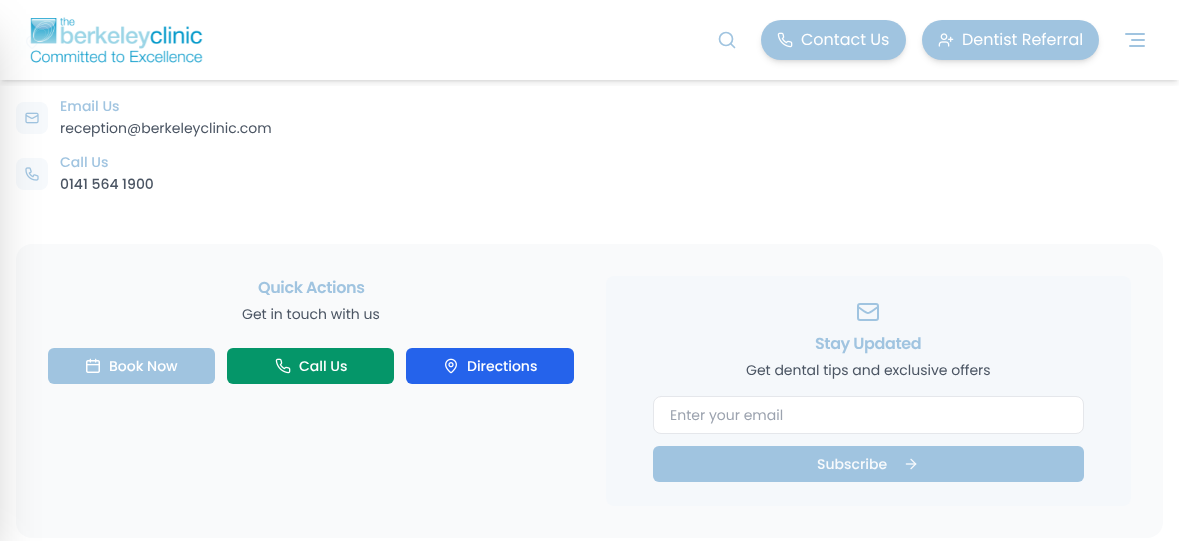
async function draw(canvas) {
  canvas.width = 1179
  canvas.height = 541
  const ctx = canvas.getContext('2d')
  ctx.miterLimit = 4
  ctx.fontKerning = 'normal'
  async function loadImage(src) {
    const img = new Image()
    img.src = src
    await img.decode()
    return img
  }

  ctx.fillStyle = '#fff'
  ctx.fillRect(0, 0, 1179, 541)
  ctx.fillStyle = '#f6f9fc'
  ctx.beginPath()
  ctx.roundRect(16, 26, 32, 32, 8)
  ctx.fill()
  ctx.drawImage(await loadImage('image3.png'), 26, 35, 12, 14)
  ctx.save()
  ctx.beginPath()
  ctx.rect(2, 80, 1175, 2)
  ctx.clip()
  ctx.fillStyle = '#0000001a'
  ctx.filter = 'blur(2px)'
  ctx.beginPath()
  ctx.rect(2, 4, 1175, 76)
  ctx.fill()
  ctx.filter = 'none'
  ctx.restore()
  ctx.save()
  ctx.beginPath()
  ctx.rect(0, 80, 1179, 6)
  ctx.clip()
  ctx.fillStyle = '#0000001a'
  ctx.filter = 'blur(3px)'
  ctx.beginPath()
  ctx.rect(1, 5, 1177, 78)
  ctx.fill()
  ctx.filter = 'none'
  ctx.restore()
  ctx.fillStyle = '#ffffffe6'
  ctx.fillRect(16, 26, 32, 32)
  ctx.drawImage(await loadImage('image0.png'), 30, 17, 173, 46)
  ctx.fillStyle = '#f6f9fc'
  ctx.beginPath()
  ctx.roundRect(16, 102, 32, 32, 8)
  ctx.fill()
  ctx.drawImage(await loadImage('image4.png'), 25, 112, 14, 12)
  ctx.beginPath()
  ctx.roundRect(16, 158, 32, 32, 8)
  ctx.fill()
  ctx.drawImage(await loadImage('image5.png'), 25, 167, 14, 14)
  ctx.fillStyle = '#f9fafb'
  ctx.beginPath()
  ctx.roundRect(16, 244, 1147, 294, 16)
  ctx.fill()
  ctx.fillStyle = '#a0c4e0'
  ctx.beginPath()
  ctx.roundRect(48, 348, 167, 36, 6)
  ctx.fill()
  ctx.fillStyle = '#00000040'
  ctx.filter = 'blur(25px)'
  ctx.beginPath()
  ctx.rect(-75, 37, 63, 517)
  ctx.fill()
  ctx.filter = 'none'
  ctx.beginPath()
  ctx.arc(726, 39, 6.5, 0, 2 * Math.PI)
  ctx.strokeStyle = '#a0c4e0'
  ctx.lineWidth = 1.7
  ctx.stroke()
  ctx.beginPath()
  ctx.moveTo(734.5, 47.5)
  ctx.lineTo(731, 44)
  ctx.lineCap = 'round'
  ctx.lineJoin = 'round'
  ctx.stroke()
  ctx.fillStyle = '#0000001a'
  ctx.filter = 'blur(2px)'
  ctx.beginPath()
  ctx.roundRect(763, 24, 141, 36, 18)
  ctx.fill()
  ctx.filter = 'none'
  ctx.filter = 'blur(3px)'
  ctx.beginPath()
  ctx.roundRect(762, 25, 143, 38, 19)
  ctx.fill()
  ctx.filter = 'none'
  ctx.fillStyle = '#a0c4e0'
  ctx.beginPath()
  ctx.roundRect(761, 20, 145, 40, 20)
  ctx.fill()
  ctx.drawImage(await loadImage('image1.png'), 777, 32, 16, 16)
  ctx.font = '16px Poppins'
  ctx.fillStyle = '#fff'
  ctx.fillText('Contact Us', 801, 45)
  ctx.fillStyle = '#0000001a'
  ctx.filter = 'blur(2px)'
  ctx.beginPath()
  ctx.roundRect(924, 24, 173, 36, 18)
  ctx.fill()
  ctx.filter = 'none'
  ctx.filter = 'blur(3px)'
  ctx.beginPath()
  ctx.roundRect(923, 25, 175, 38, 19)
  ctx.fill()
  ctx.filter = 'none'
  ctx.fillStyle = '#a0c4e0'
  ctx.beginPath()
  ctx.roundRect(922, 20, 177, 40, 20)
  ctx.fill()
  ctx.drawImage(await loadImage('image2.png'), 938, 33, 16, 14)
  ctx.fillStyle = '#fff'
  ctx.fillText('Dentist Referral', 962, 45)
  ctx.beginPath()
  ctx.moveTo(1144, 40)
  ctx.lineTo(1132, 40)
  ctx.moveTo(1144, 46)
  ctx.lineTo(1130, 46)
  ctx.moveTo(1144, 34)
  ctx.lineTo(1126, 34)
  ctx.lineWidth = 2
  ctx.stroke()
  ctx.font = '500 14px Poppins'
  ctx.fillStyle = '#a0c4e0'
  ctx.fillText('Email Us', 60, 111)
  ctx.font = '14px Poppins'
  ctx.fillStyle = '#4b5563'
  ctx.fillText('reception@berkeleyclinic.com', 60, 133)
  ctx.font = '500 14px Poppins'
  ctx.fillStyle = '#a0c4e0'
  ctx.fillText('Call Us', 60, 167)
  ctx.fillStyle = '#4b5563'
  ctx.fillText('0141 564 1900', 60, 189)
  ctx.letterSpacing = '-0.4px'
  ctx.font = '600 16px Poppins'
  ctx.fillStyle = '#a0c4e0'
  ctx.fillText('Quick Actions', 258, 293)
  ctx.letterSpacing = '0px'
  ctx.font = '14px Poppins'
  ctx.fillStyle = '#4b5563'
  ctx.fillText('Get in touch with us', 242, 319)
  ctx.drawImage(await loadImage('image6.png'), 86, 358, 14, 15)
  ctx.font = '500 14px Poppins'
  ctx.fillStyle = '#fff'
  ctx.fillText('Book Now', 109, 371)
  ctx.fillStyle = '#059669'
  ctx.beginPath()
  ctx.roundRect(227, 348, 167, 36, 6)
  ctx.fill()
  ctx.drawImage(await loadImage('image7.png'), 275, 358, 16, 16)
  ctx.fillStyle = '#fff'
  ctx.fillText('Call Us', 299, 371)
  ctx.fillStyle = '#2563eb'
  ctx.beginPath()
  ctx.roundRect(406, 348, 168, 36, 6)
  ctx.fill()
  ctx.drawImage(await loadImage('image8.png'), 445, 358, 12, 16)
  ctx.fillStyle = '#fff'
  ctx.fillText('Directions', 467, 371)
  ctx.fillStyle = '#f5f8fb'
  ctx.beginPath()
  ctx.roundRect(606, 276, 525, 230, 8)
  ctx.fill()
  ctx.beginPath()
  ctx.roundRect(858, 304, 20, 16, 2)
  ctx.lineJoin = 'miter'
  ctx.stroke()
  ctx.beginPath()
  ctx.moveTo(878, 307)
  ctx.bezierCurveTo(866, 315, 870, 315, 858, 307)
  ctx.lineJoin = 'round'
  ctx.stroke()
  ctx.letterSpacing = '-0.4px'
  ctx.font = '600 16px Poppins'
  ctx.fillStyle = '#a0c4e0'
  ctx.fillText('Stay Updated', 815, 349)
  ctx.letterSpacing = '0px'
  ctx.font = '14px Poppins'
  ctx.fillStyle = '#4b5563'
  ctx.fillText('Get dental tips and exclusive offers', 746, 375)
  ctx.fillStyle = '#fff'
  ctx.beginPath()
  ctx.roundRect(653.5, 396.5, 430, 37, 7.5)
  ctx.fill()
  ctx.strokeStyle = '#e5e7eb'
  ctx.lineWidth = 1
  ctx.lineJoin = 'miter'
  ctx.stroke()
  ctx.fillStyle = '#9ca3af'
  ctx.fillText('Enter your email', 670, 420)
  ctx.fillStyle = '#a0c4e0'
  ctx.beginPath()
  ctx.roundRect(653, 446, 431, 36, 6)
  ctx.fill()
  ctx.font = '500 14px Poppins'
  ctx.fillStyle = '#f8fafc'
  ctx.fillText('Subscribe', 817, 469)
  ctx.drawImage(await loadImage('image9.png'), 905, 458, 12, 12)
}

draw(document.querySelector('canvas'))
